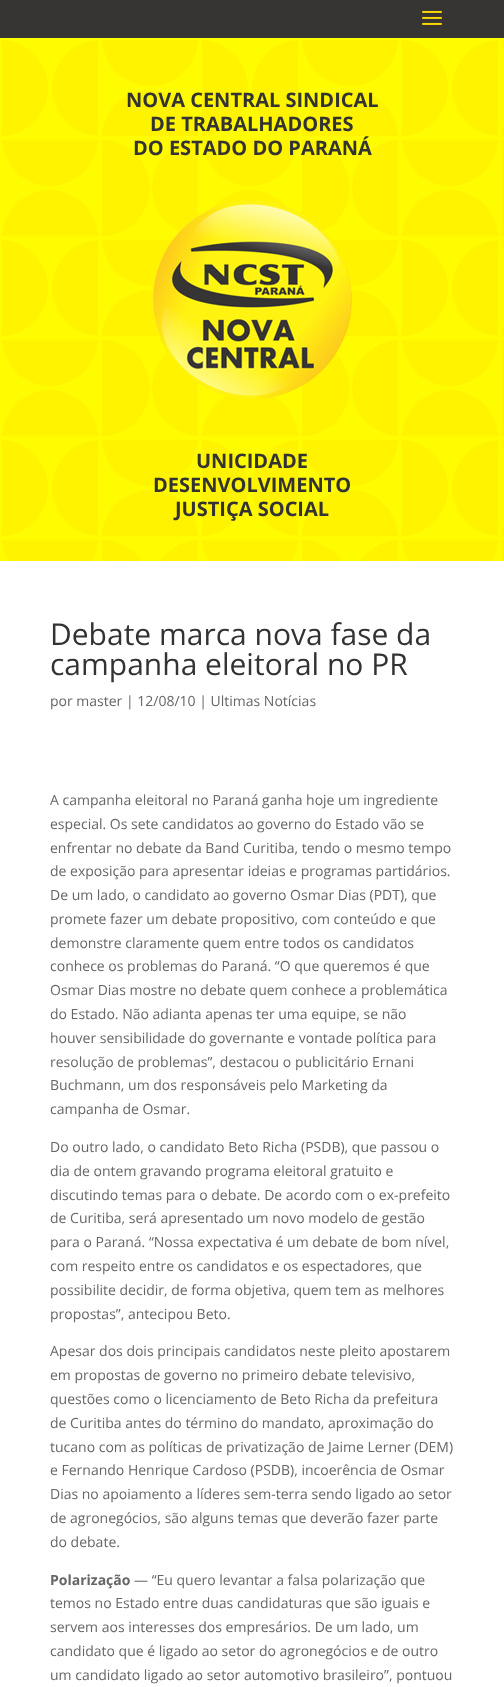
async function draw(canvas) {
  canvas.width = 504
  canvas.height = 1687
  const ctx = canvas.getContext('2d')
  ctx.miterLimit = 4
  ctx.fontKerning = 'normal'
  async function loadImage(src) {
    const img = new Image()
    img.src = src
    await img.decode()
    return img
  }

  ctx.fillStyle = '#fff'
  ctx.fillRect(0, 0, 504, 1687)
  ctx.fillStyle = '#373434'
  ctx.fillRect(0, 0, 504, 38)
  ctx.drawImage(await loadImage('image0.png'), 422, 10, 20, 15)
  ctx.fillStyle = '#fffc01'
  ctx.fillRect(0, 38, 504, 523)
  ctx.drawImage(await loadImage('image1.png'), 2, 40, 502, 521)
  ctx.font = 'bold 20px Open Sans'
  ctx.fillStyle = '#333'
  ctx.fillText('NOVA CENTRAL SINDICAL', 126, 107)
  ctx.fillText('DE TRABALHADORES', 150, 131)
  ctx.fillText('DO ESTADO DO PARANÁ', 133, 155)
  ctx.drawImage(await loadImage('image2.png'), 152, 200, 200, 199)
  ctx.fillText('UNICIDADE', 196, 468)
  ctx.fillText('DESENVOLVIMENTO', 153, 492)
  ctx.fillText('JUSTIÇA SOCIAL', 175, 516)
  ctx.font = '30px Open Sans'
  ctx.fillText('Debate marca nova fase da', 50, 645)
  ctx.fillText('campanha eleitoral no PR', 50, 675)
  ctx.font = '14px Open Sans'
  ctx.fillStyle = '#666'
  ctx.fillText('por master | 12/08/10 | Ultimas Notícias', 50, 706)
  ctx.fillText('A campanha eleitoral no Paraná ganha hoje um ingrediente', 50, 805)
  ctx.fillText('especial. Os sete candidatos ao governo do Estado vão se', 50, 829)
  ctx.fillText('enfrentar no debate da Band Curitiba, tendo o mesmo tempo', 50, 853)
  ctx.fillText('de exposição para apresentar ideias e programas partidários.', 50, 876)
  ctx.fillText('De um lado, o candidato ao governo Osmar Dias (PDT), que', 50, 900)
  ctx.fillText('promete fazer um debate propositivo, com conteúdo e que', 50, 924)
  ctx.fillText('demonstre claramente quem entre todos os candidatos', 50, 948)
  ctx.fillText('conhece os problemas do Paraná. “O que queremos é que', 50, 971)
  ctx.fillText('Osmar Dias mostre no debate quem conhece a problemática', 50, 995)
  ctx.fillText('do Estado. Não adianta apenas ter uma equipe, se não', 50, 1019)
  ctx.fillText('houver sensibilidade do governante e vontade política para', 50, 1043)
  ctx.fillText('resolução de problemas”, destacou o publicitário Ernani', 50, 1067)
  ctx.fillText('Buchmann, um dos responsáveis pelo Marketing da', 50, 1090)
  ctx.fillText('campanha de Osmar.', 50, 1114)
  ctx.fillText('Do outro lado, o candidato Beto Richa (PSDB), que passou o', 50, 1152)
  ctx.fillText('dia de ontem gravando programa eleitoral gratuito e', 50, 1176)
  ctx.fillText('discutindo temas para o debate. De acordo com o ex-prefeito', 50, 1200)
  ctx.fillText('de Curitiba, será apresentado um novo modelo de gestão', 50, 1223)
  ctx.fillText('para o Paraná. “Nossa expectativa é um debate de bom nível,', 50, 1247)
  ctx.fillText('com respeito entre os candidatos e os espectadores, que', 50, 1271)
  ctx.fillText('possibilite decidir, de forma objetiva, quem tem as melhores', 50, 1295)
  ctx.fillText('propostas”, antecipou Beto.', 50, 1319)
  ctx.fillText('Apesar dos dois principais candidatos neste pleito apostarem', 50, 1356)
  ctx.fillText('em propostas de governo no primeiro debate televisivo,', 50, 1380)
  ctx.fillText('questões como o licenciamento de Beto Richa da prefeitura', 50, 1404)
  ctx.fillText('de Curitiba antes do término do mandato, aproximação do', 50, 1428)
  ctx.fillText('tucano com as políticas de privatização de Jaime Lerner (DEM)', 50, 1452)
  ctx.fillText('e Fernando Henrique Cardoso (PSDB), incoerência de Osmar', 50, 1475)
  ctx.fillText('Dias no apoiamento a líderes sem-terra sendo ligado ao setor', 50, 1499)
  ctx.fillText('de agronegócios, são alguns temas que deverão fazer parte', 50, 1523)
  ctx.fillText('do debate.', 50, 1547)
  ctx.font = 'bold 14px Open Sans'
  ctx.fillText('Polarização', 50, 1585)
  ctx.font = '14px Open Sans'
  ctx.fillText('— “Eu quero levantar a falsa polarização que', 134, 1585)
  ctx.fillText('temos no Estado entre duas candidaturas que são iguais e', 50, 1608)
  ctx.fillText('servem aos interesses dos empresários. De um lado, um', 50, 1632)
  ctx.fillText('candidato que é ligado ao setor do agronegócios e de outro', 50, 1656)
  ctx.fillText('um candidato ligado ao setor automotivo brasileiro”, pontuou', 50, 1680)
}

draw(document.querySelector('canvas'))
